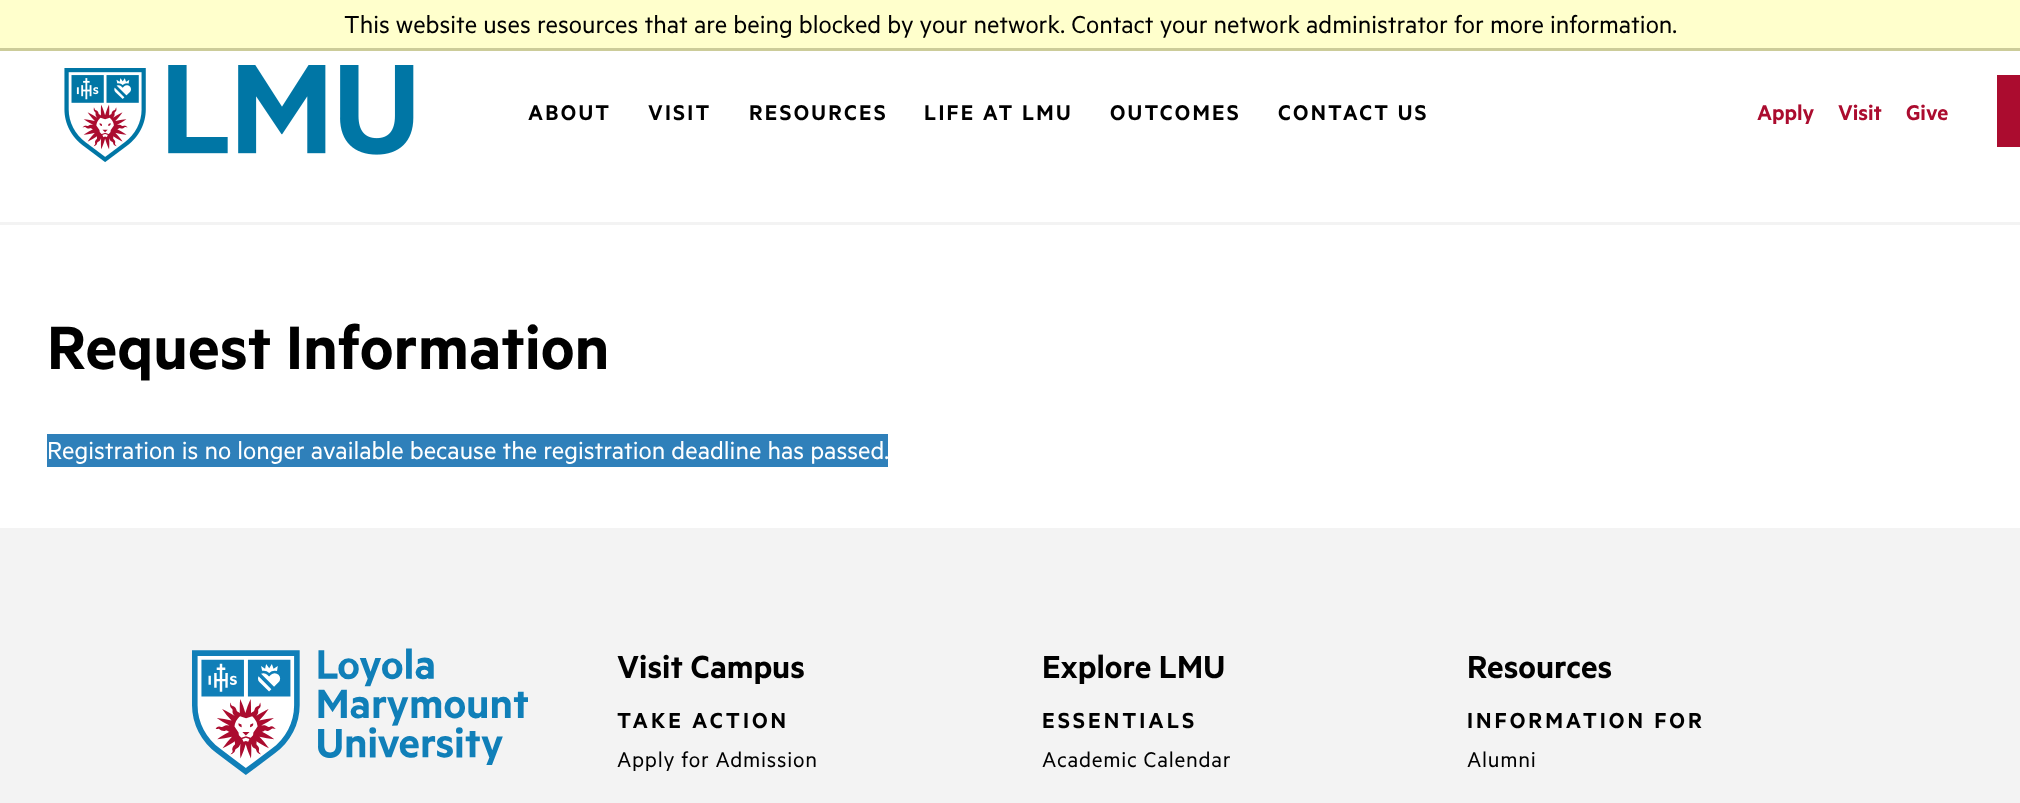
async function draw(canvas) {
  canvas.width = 2020
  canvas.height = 803
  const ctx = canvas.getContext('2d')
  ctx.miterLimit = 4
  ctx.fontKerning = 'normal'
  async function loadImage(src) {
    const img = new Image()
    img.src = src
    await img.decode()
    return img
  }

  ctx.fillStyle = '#fff'
  ctx.fillRect(0, 0, 2020, 803)
  ctx.fillStyle = '#ffc'
  ctx.fillRect(0, 0, 2020, 48)
  ctx.fillStyle = '#cc9'
  ctx.fillRect(0, 48, 2020, 3)
  ctx.font = '27.6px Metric'
  ctx.fillStyle = '#000'
  ctx.fillText('This website uses resources that are being blocked by your network. Contact your network administrator for more information.', 344, 33)
  ctx.fillStyle = '#f3f3f3'
  ctx.fillRect(0, 222, 2020, 3)
  ctx.drawImage(await loadImage('image0.png'), 64, 65, 350, 98)
  ctx.letterSpacing = '2.25px'
  ctx.font = '600 24px Metric'
  ctx.fillStyle = '#000'
  ctx.fillText('ABOUT', 528, 120)
  ctx.fillText('VISIT', 648, 120)
  ctx.fillText('RESOURCES', 749, 120)
  ctx.fillText('LIFE AT LMU', 924, 120)
  ctx.fillText('OUTCOMES', 1110, 120)
  ctx.fillText('CONTACT US', 1278, 120)
  ctx.fillStyle = '#ab0c2f'
  ctx.fillRect(1997, 75, 23, 72)
  ctx.letterSpacing = '0px'
  ctx.fillText('Apply', 1757, 120)
  ctx.fillText('Visit', 1838, 120)
  ctx.fillText('Give', 1906, 120)
  ctx.font = '600 69px Metric'
  ctx.fillStyle = '#000'
  ctx.fillText('Request Information', 47, 369)
  ctx.fillStyle = '#2f80ba'
  ctx.fillRect(47, 434, 841, 33)
  ctx.font = '27.6px Metric'
  ctx.fillStyle = '#fff'
  ctx.fillText('Registration is no longer available because the registration deadline has passed.', 47, 459)
  ctx.fillStyle = '#f3f3f3'
  ctx.fillRect(0, 528, 2020, 275)
  ctx.drawImage(await loadImage('image1.png'), 192, 648, 336, 127)
  ctx.font = '600 36px Metric'
  ctx.fillStyle = '#000'
  ctx.fillText('Visit Campus', 617, 678)
  ctx.letterSpacing = '3px'
  ctx.font = '600 24.5px Metric'
  ctx.fillText('TAKE ACTION', 617, 728)
  ctx.letterSpacing = '0.75px'
  ctx.font = '24px Metric'
  ctx.fillText('Apply for Admission', 617, 767)
  ctx.letterSpacing = '0px'
  ctx.font = '600 36px Metric'
  ctx.fillText('Explore LMU', 1042, 678)
  ctx.letterSpacing = '3px'
  ctx.font = '600 24.5px Metric'
  ctx.fillText('ESSENTIALS', 1042, 728)
  ctx.letterSpacing = '0.75px'
  ctx.font = '24px Metric'
  ctx.fillText('Academic Calendar', 1042, 767)
  ctx.letterSpacing = '0px'
  ctx.font = '600 36px Metric'
  ctx.fillText('Resources', 1467, 678)
  ctx.letterSpacing = '3px'
  ctx.font = '600 24.5px Metric'
  ctx.fillText('INFORMATION FOR', 1467, 728)
  ctx.letterSpacing = '0.75px'
  ctx.font = '24px Metric'
  ctx.fillText('Alumni', 1467, 767)
}

draw(document.querySelector('canvas'))
